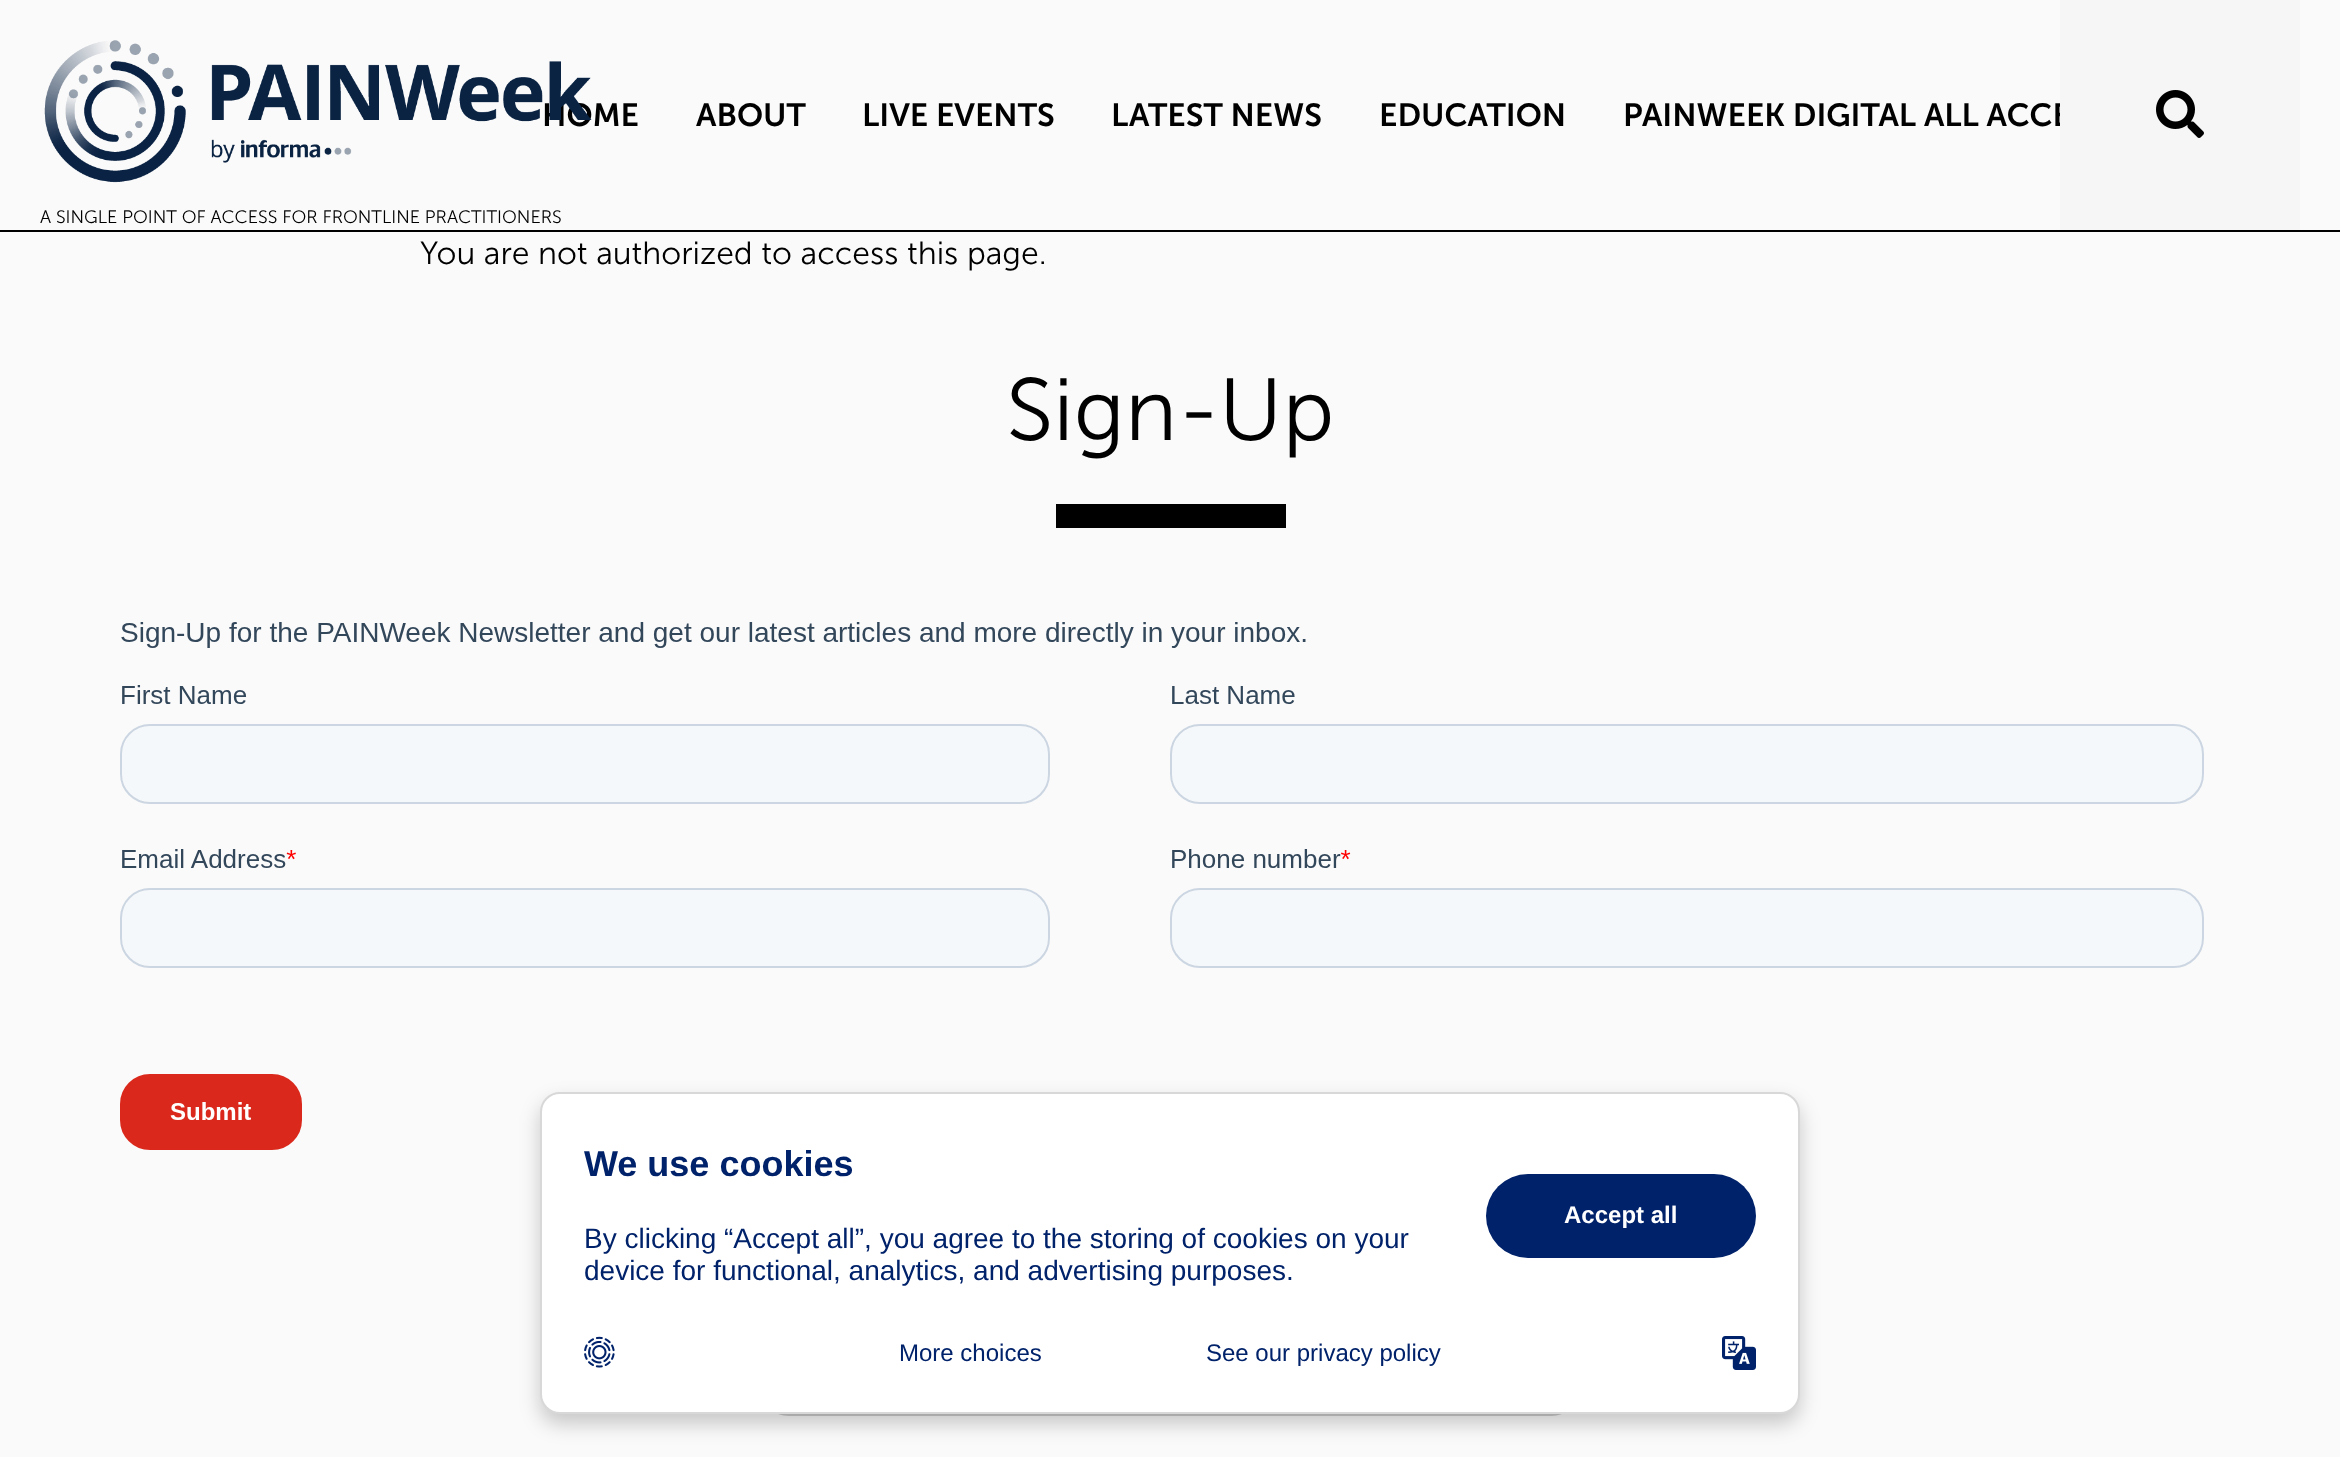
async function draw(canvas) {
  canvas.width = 2340
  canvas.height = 1457
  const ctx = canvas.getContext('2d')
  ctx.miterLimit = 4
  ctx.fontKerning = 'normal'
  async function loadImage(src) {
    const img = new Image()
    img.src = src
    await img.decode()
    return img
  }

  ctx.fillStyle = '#fafafa'
  ctx.fillRect(0, 0, 2340, 1457)
  ctx.fillStyle = '#000'
  ctx.fillRect(0, 230, 2340, 2)
  ctx.font = '600 32px "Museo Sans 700"'
  ctx.fillText('HOME', 542, 126)
  ctx.fillText('ABOUT', 696, 126)
  ctx.fillText('LIVE EVENTS', 862, 126)
  ctx.fillText('LATEST NEWS', 1111, 126)
  ctx.fillText('EDUCATION', 1379, 126)
  ctx.fillText('PAINWEEK DIGITAL ALL ACCE', 1623, 126)
  ctx.fillStyle = '#f6f6f6'
  ctx.fillRect(2060, 0, 240, 230)
  ctx.drawImage(await loadImage('image0.png'), 2156, 90, 48, 48)
  ctx.drawImage(await loadImage('image1.png'), 44, 40, 548, 143)
  ctx.font = '300 18px "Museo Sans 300"'
  ctx.fillStyle = '#000'
  ctx.fillText('A SINGLE POINT OF ACCESS FOR FRONTLINE PRACTITIONERS', 40, 223)
  ctx.font = '300 32px "Museo Sans 300"'
  ctx.fillText('You are not authorized to access this page.', 420, 264)
  ctx.font = '300 88px "Museo Sans 300"'
  ctx.fillText('Sign-Up', 1006, 440)
  ctx.fillRect(1056, 504, 230, 24)
  ctx.drawImage(await loadImage('image2.png'), 120, 622, 2084, 528)
  ctx.fillStyle = '#ccc'
  ctx.beginPath()
  ctx.roundRect(764, 1338, 812, 78, 24)
  ctx.fill()
  ctx.fillStyle = '#00000033'
  ctx.filter = 'blur(10px)'
  ctx.beginPath()
  ctx.roundRect(540, 1102, 1260, 322, 20)
  ctx.fill()
  ctx.filter = 'none'
  ctx.fillStyle = '#fff'
  ctx.beginPath()
  ctx.roundRect(541, 1093, 1258, 320, 19)
  ctx.fill()
  ctx.strokeStyle = '#d8d8d8'
  ctx.lineWidth = 2
  ctx.stroke()
  ctx.font = 'bold 36px Liberation Sans'
  ctx.fillStyle = '#00226a'
  ctx.fillText('We use cookies', 584, 1176)
  ctx.font = '28px Liberation Sans'
  ctx.fillText('By clicking “Accept all”, you agree to the storing of cookies on your', 584, 1248)
  ctx.fillText('device for functional, analytics, and advertising purposes.', 584, 1280)
  ctx.beginPath()
  ctx.roundRect(1486, 1174, 270, 84, 42)
  ctx.fill()
  ctx.font = 'bold 24px Liberation Sans'
  ctx.fillStyle = '#fff'
  ctx.fillText('Accept all', 1564, 1223)
  ctx.drawImage(await loadImage('image3.png'), 584, 1336, 31, 32)
  ctx.font = '24px Liberation Sans'
  ctx.fillStyle = '#00226a'
  ctx.fillText('More choices', 899, 1361)
  ctx.fillText('See our privacy policy', 1206, 1361)
  ctx.drawImage(await loadImage('image4.png'), 1722, 1336, 34, 34)
}

draw(document.querySelector('canvas'))
